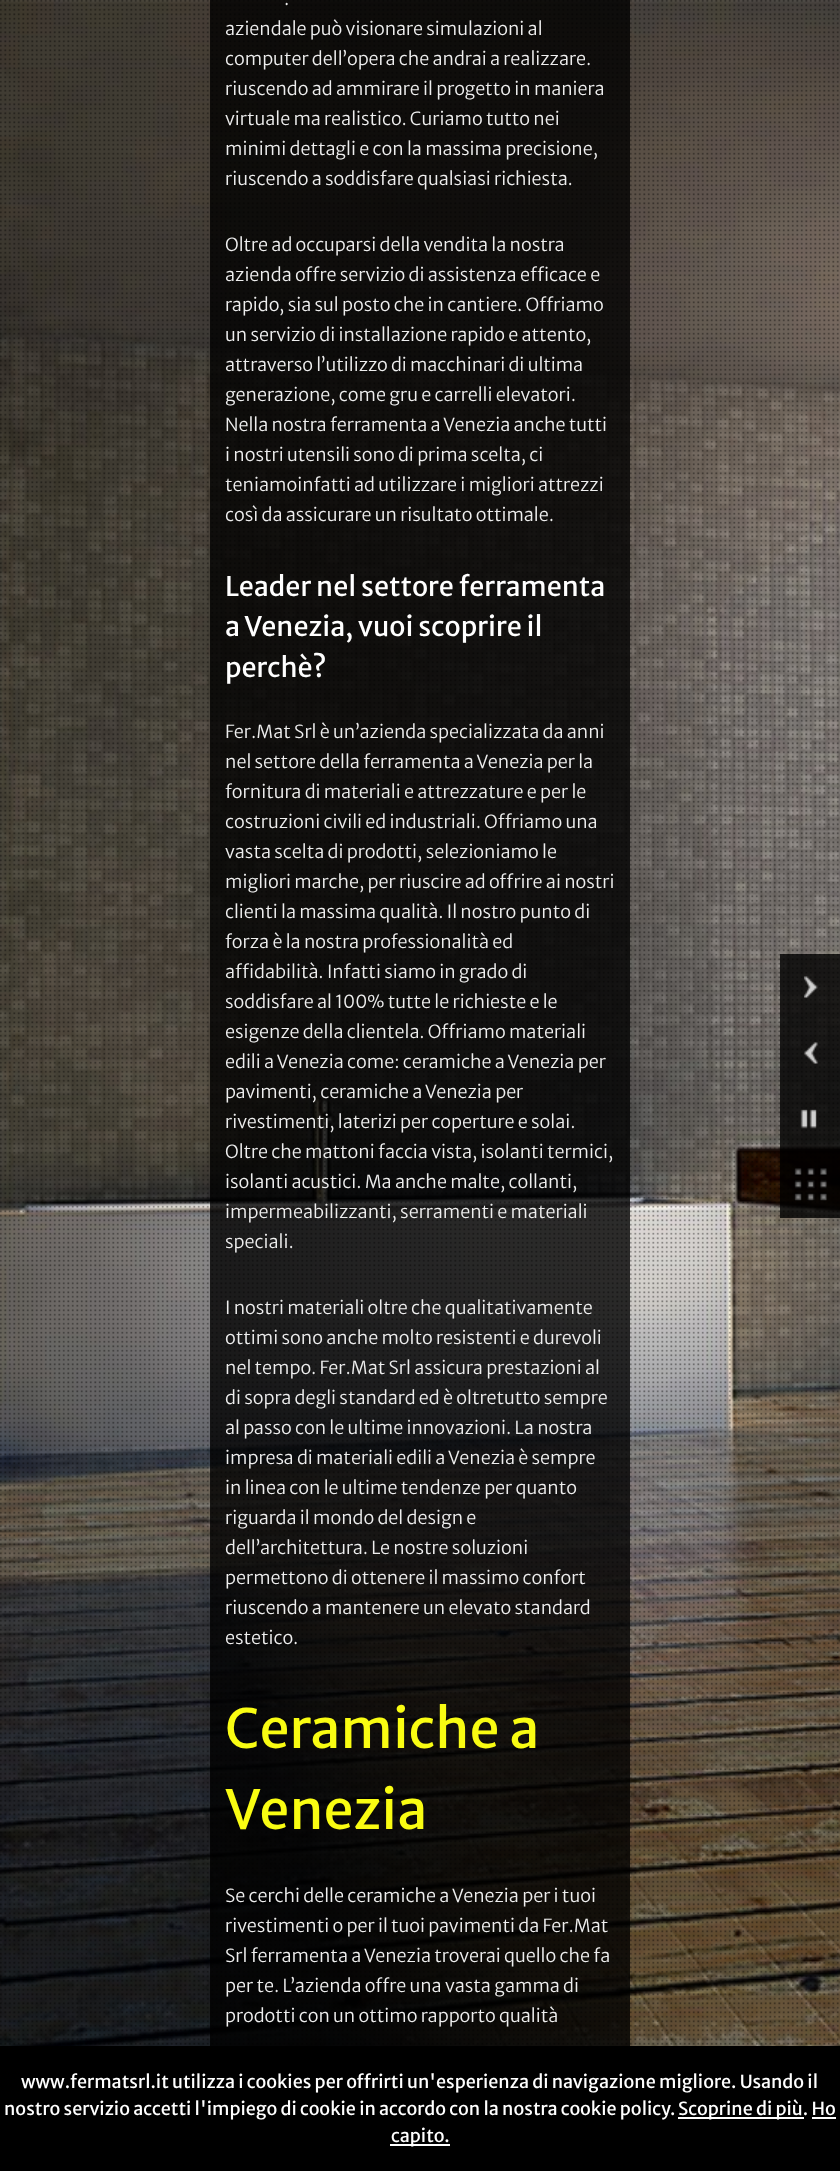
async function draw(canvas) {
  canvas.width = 840
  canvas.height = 2171
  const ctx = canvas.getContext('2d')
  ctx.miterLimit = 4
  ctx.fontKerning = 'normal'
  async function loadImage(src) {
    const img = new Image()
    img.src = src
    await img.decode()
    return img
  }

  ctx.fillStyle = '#fff'
  ctx.fillRect(0, 0, 840, 2171)
  ctx.drawImage(await loadImage('image0.png'), 0, 0, 840, 2046)
  ctx.drawImage(await loadImage('image1.png'), 0, 0, 839, 2045)
  ctx.fillStyle = '#000000cc'
  ctx.fillRect(210, 0, 420, 2046)
  ctx.font = '300 18px Merriweather Sans'
  ctx.fillStyle = '#eee'
  ctx.fillText('.', 284, 5)
  ctx.fillText('aziendale può visionare simulazioni al', 225, 35)
  ctx.fillText('computer dell’opera che andrai a realizzare.', 225, 65)
  ctx.fillText('riuscendo ad ammirare il progetto in maniera', 225, 95)
  ctx.fillText('virtuale ma realistico. Curiamo tutto nei', 225, 125)
  ctx.fillText('minimi dettagli e con la massima precisione,', 225, 155)
  ctx.fillText('riuscendo a soddisfare qualsiasi richiesta.', 225, 185)
  ctx.fillText('Oltre ad occuparsi della vendita la nostra', 225, 251)
  ctx.fillText('azienda offre servizio di assistenza efficace e', 225, 281)
  ctx.fillText('rapido, sia sul posto che in cantiere. Offriamo', 225, 311)
  ctx.fillText('un servizio di installazione rapido e attento,', 225, 341)
  ctx.fillText('attraverso l’utilizzo di macchinari di ultima', 225, 371)
  ctx.fillText('generazione, come gru e carrelli elevatori.', 225, 401)
  ctx.fillText('Nella nostra ferramenta a Venezia anche tutti', 225, 431)
  ctx.fillText('i nostri utensili sono di prima scelta, ci', 225, 461)
  ctx.fillText('teniamoinfatti ad utilizzare i migliori attrezzi', 225, 491)
  ctx.fillText('così da assicurare un risultato ottimale.', 225, 521)
  ctx.font = '27px Merriweather Sans'
  ctx.fillStyle = '#fff'
  ctx.fillText('Leader nel settore ferramenta', 225, 596)
  ctx.fillText('a Venezia, vuoi scoprire il', 225, 636)
  ctx.fillText('perchè?', 225, 677)
  ctx.font = '300 18px Merriweather Sans'
  ctx.fillStyle = '#eee'
  ctx.fillText('Fer.Mat Srl è un’azienda specializzata da anni', 225, 738)
  ctx.fillText('nel settore della ferramenta a Venezia per la', 225, 768)
  ctx.fillText('fornitura di materiali e attrezzature e per le', 225, 798)
  ctx.fillText('costruzioni civili ed industriali. Offriamo una', 225, 828)
  ctx.fillText('vasta scelta di prodotti, selezioniamo le', 225, 858)
  ctx.fillText('migliori marche, per riuscire ad offrire ai nostri', 225, 888)
  ctx.fillText('clienti la massima qualità. Il nostro punto di', 225, 918)
  ctx.fillText('forza è la nostra professionalità ed', 225, 948)
  ctx.fillText('affidabilità. Infatti siamo in grado di', 225, 978)
  ctx.fillText('soddisfare al 100% tutte le richieste e le', 225, 1008)
  ctx.fillText('esigenze della clientela. Offriamo materiali', 225, 1038)
  ctx.fillText('edili a Venezia come: ceramiche a Venezia per', 225, 1068)
  ctx.fillText('pavimenti, ceramiche a Venezia per', 225, 1098)
  ctx.fillText('rivestimenti, laterizi per coperture e solai.', 225, 1128)
  ctx.fillText('Oltre che mattoni faccia vista, isolanti termici,', 225, 1158)
  ctx.fillText('isolanti acustici. Ma anche malte, collanti,', 225, 1188)
  ctx.fillText('impermeabilizzanti, serramenti e materiali', 225, 1218)
  ctx.fillText('speciali.', 225, 1248)
  ctx.fillText('I nostri materiali oltre che qualitativamente', 225, 1314)
  ctx.fillText('ottimi sono anche molto resistenti e durevoli', 225, 1344)
  ctx.fillText('nel tempo. Fer.Mat Srl assicura prestazioni al', 225, 1374)
  ctx.fillText('di sopra degli standard ed è oltretutto sempre', 225, 1404)
  ctx.fillText('al passo con le ultime innovazioni. La nostra', 225, 1434)
  ctx.fillText('impresa di materiali edili a Venezia è sempre', 225, 1464)
  ctx.fillText('in linea con le ultime tendenze per quanto', 225, 1494)
  ctx.fillText('riguarda il mondo del design e', 225, 1524)
  ctx.fillText('dell’architettura. Le nostre soluzioni', 225, 1554)
  ctx.fillText('permettono di ottenere il massimo confort', 225, 1584)
  ctx.fillText('riuscendo a mantenere un elevato standard', 225, 1614)
  ctx.fillText('estetico.', 225, 1644)
  ctx.font = '54px Merriweather Sans'
  ctx.fillStyle = '#f9fc12'
  ctx.fillText('Ceramiche a', 225, 1748)
  ctx.fillText('Venezia', 225, 1829)
  ctx.font = '300 18px Merriweather Sans'
  ctx.fillStyle = '#eee'
  ctx.fillText('Se cerchi delle ceramiche a Venezia per i tuoi', 225, 1902)
  ctx.fillText('rivestimenti o per il tuoi pavimenti da Fer.Mat', 225, 1932)
  ctx.fillText('Srl ferramenta a Venezia troverai quello che fa', 225, 1962)
  ctx.fillText('per te. L’azienda offre una vasta gamma di', 225, 1992)
  ctx.fillText('prodotti con un ottimo rapporto qualità', 225, 2022)
  ctx.fillStyle = '#000000cc'
  ctx.fillRect(780, 954, 60, 66)
  ctx.drawImage(await loadImage('image2.png'), 804, 976, 14, 22)
  ctx.fillRect(780, 1020, 60, 66)
  ctx.drawImage(await loadImage('image3.png'), 804, 1042, 14, 22)
  ctx.fillRect(780, 1086, 60, 66)
  ctx.drawImage(await loadImage('image4.png'), 800, 1109, 17, 20)
  ctx.fillRect(780, 1152, 60, 66)
  ctx.drawImage(await loadImage('image5.png'), 794, 1168, 33, 33)
  ctx.fillStyle = '#000'
  ctx.fillRect(0, 2046, 840, 125)
  ctx.font = '18px Merriweather Sans'
  ctx.fillStyle = '#fff'
  ctx.fillText('www.fermatsrl.it utilizza i cookies per offrirti un\'esperienza di navigazione migliore. Usando il', 21, 2088)
  ctx.fillText('nostro servizio accetti l\'impiego di cookie in accordo con la nostra cookie policy.', 4, 2115)
  ctx.fillRect(678, 2117, 126, 2)
  ctx.fillText('Scoprine di più. Ho', 678, 2115)
  ctx.fillRect(390, 2144, 60, 2)
  ctx.fillText('capito.', 391, 2142)
  ctx.fillRect(812, 2117, 24, 2)
}

draw(document.querySelector('canvas'))
